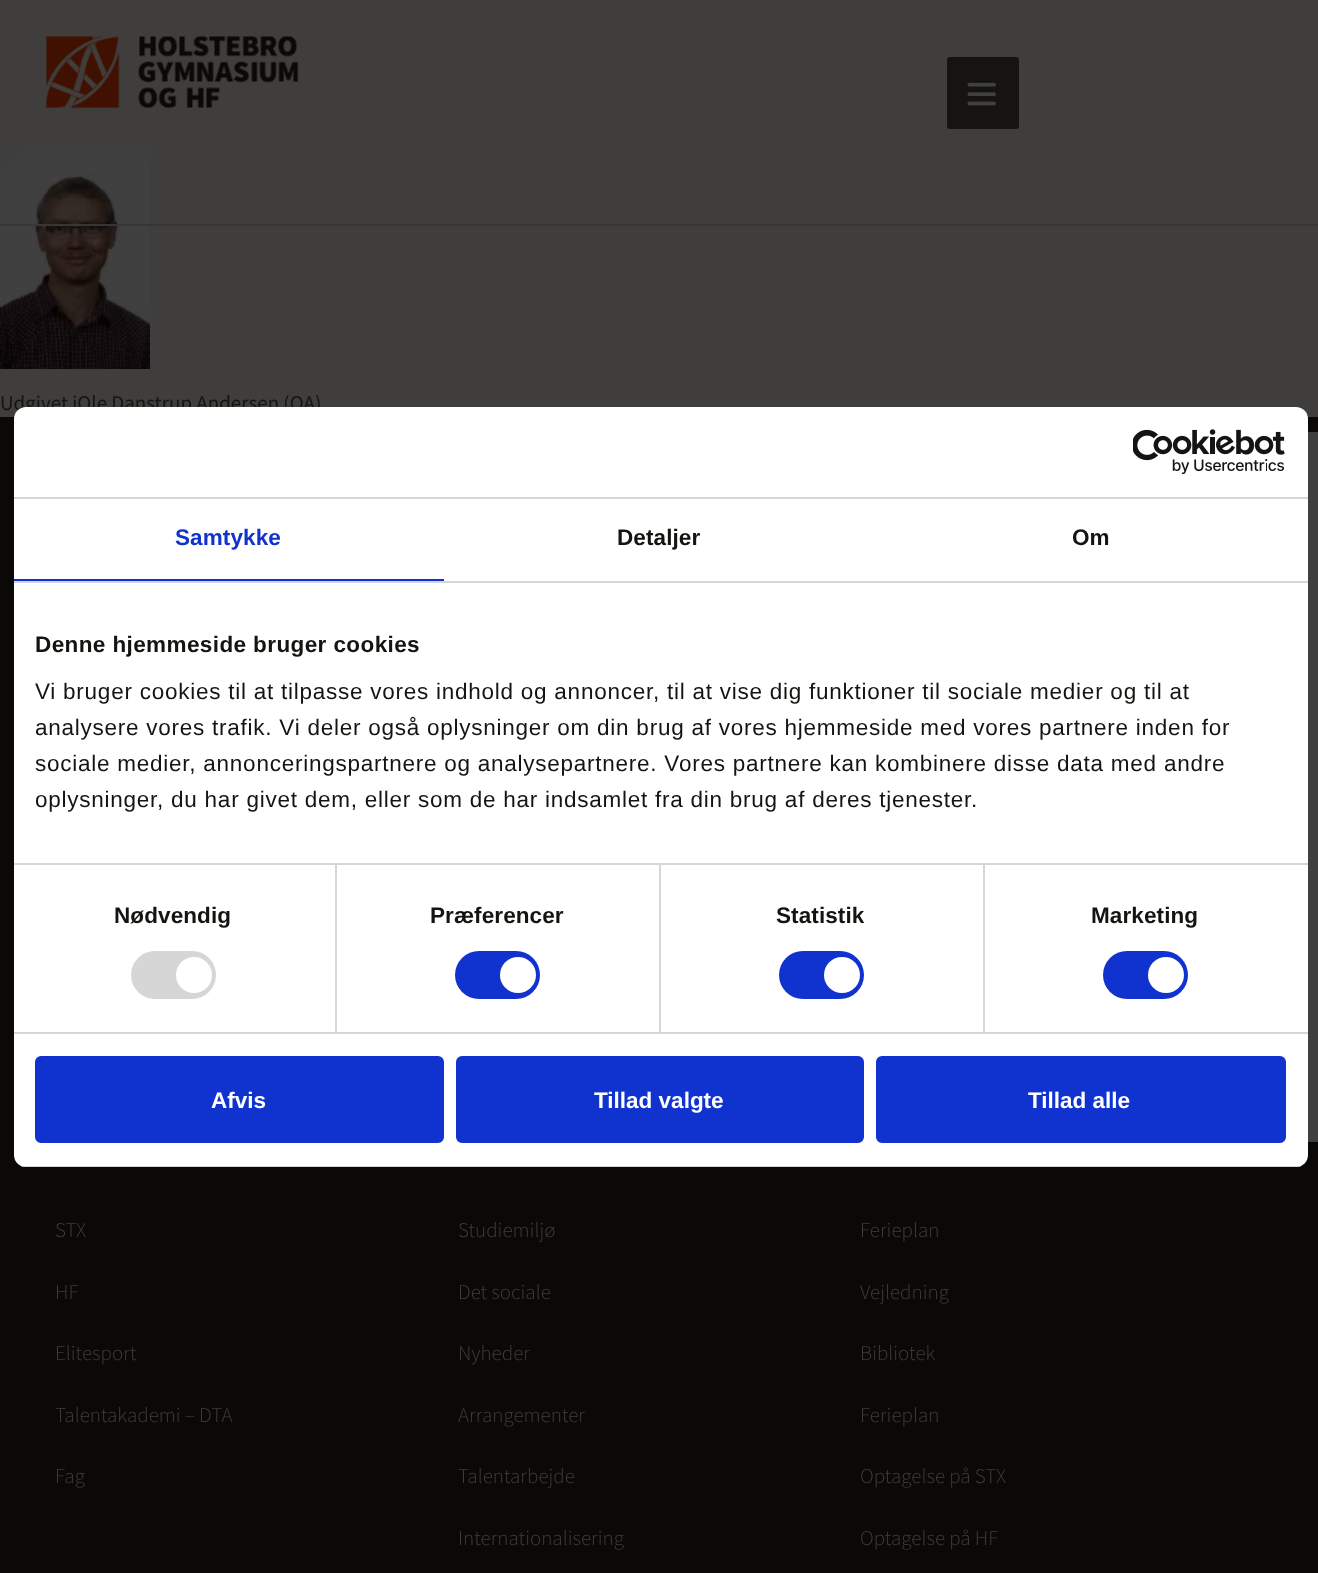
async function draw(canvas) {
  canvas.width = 1318
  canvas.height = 1573
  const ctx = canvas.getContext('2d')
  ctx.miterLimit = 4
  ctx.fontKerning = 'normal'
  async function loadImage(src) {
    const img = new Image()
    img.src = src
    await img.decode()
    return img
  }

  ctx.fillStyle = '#403e3c'
  ctx.fillRect(0, 0, 1318, 1573)
  ctx.drawImage(await loadImage('image0.png'), 46, 36, 253, 73)
  ctx.fillStyle = '#161411'
  ctx.beginPath()
  ctx.roundRect(947, 57, 72, 72, 3)
  ctx.fill()
  ctx.drawImage(await loadImage('image1.png'), 967, 82, 29, 24)
  ctx.drawImage(await loadImage('image2.png'), 0, 144, 150, 225)
  ctx.fillStyle = '#363636'
  ctx.fillRect(0, 224, 1318, 2)
  ctx.font = '21px Source Sans Pro'
  ctx.fillStyle = '#161411'
  ctx.fillText('Udgivet iOle Danstrup Andersen (OA)', 0, 410)
  ctx.fillStyle = '#0a0907'
  ctx.fillRect(0, 417, 1318, 1156)
  ctx.fillStyle = '#404040'
  ctx.fillRect(1308, 432, 10, 710)
  ctx.fillStyle = '#fff'
  ctx.beginPath()
  ctx.roundRect(14, 407, 1294, 760, 12)
  ctx.fill()
  ctx.fillStyle = '#d6d6d6'
  ctx.fillRect(14, 497, 1294, 2)
  ctx.drawImage(await loadImage('image3.png'), 1133, 429, 152, 45)
  ctx.fillRect(14, 581, 1294, 2)
  ctx.fillStyle = '#1032cf'
  ctx.fillRect(14, 579, 430, 2)
  ctx.letterSpacing = '0.1px'
  ctx.font = 'bold 22.5px Liberation Sans'
  ctx.fillText('Samtykke', 175, 545)
  ctx.fillStyle = '#161411'
  ctx.fillText('Detaljer', 617, 545)
  ctx.fillText('Om', 1072, 545)
  ctx.fillStyle = '#d6d6d6'
  ctx.fillRect(335, 864, 2, 168)
  ctx.fillRect(659, 864, 2, 168)
  ctx.fillRect(983, 864, 2, 168)
  ctx.fillRect(14, 863, 1294, 2)
  ctx.letterSpacing = '0.4px'
  ctx.fillStyle = '#161411'
  ctx.fillText('Denne hjemmeside bruger cookies', 35, 652)
  ctx.letterSpacing = '0.75px'
  ctx.font = '22.5px Liberation Sans'
  ctx.fillText('Vi bruger cookies til at tilpasse vores indhold og annoncer, til at vise dig funktioner til sociale medier og til at', 35, 699)
  ctx.fillText('analysere vores trafik. Vi deler også oplysninger om din brug af vores hjemmeside med vores partnere inden for', 35, 735)
  ctx.fillText('sociale medier, annonceringspartnere og analysepartnere. Vores partnere kan kombinere disse data med andre', 35, 771)
  ctx.fillText('oplysninger, du har givet dem, eller som de har indsamlet fra din brug af deres tjenester.', 35, 807)
  ctx.fillStyle = '#d6d6d6'
  ctx.fillRect(14, 1032, 1294, 2)
  ctx.letterSpacing = '0.1px'
  ctx.font = 'bold 22.5px Liberation Sans'
  ctx.fillStyle = '#161411'
  ctx.fillText('Nødvendig', 114, 923)
  ctx.fillStyle = '#d6d6d6'
  ctx.beginPath()
  ctx.roundRect(131, 951, 85, 48, 24)
  ctx.fill()
  ctx.fillStyle = '#fff'
  ctx.beginPath()
  ctx.arc(194, 975, 18, 0, 2 * Math.PI)
  ctx.fill()
  ctx.fillStyle = '#161411'
  ctx.fillText('Præferencer', 430, 923)
  ctx.fillStyle = '#1032cf'
  ctx.beginPath()
  ctx.roundRect(455, 951, 85, 48, 24)
  ctx.fill()
  ctx.fillStyle = '#fff'
  ctx.beginPath()
  ctx.arc(518, 975, 18, 0, 2 * Math.PI)
  ctx.fill()
  ctx.fillStyle = '#161411'
  ctx.fillText('Statistik', 776, 923)
  ctx.fillStyle = '#1032cf'
  ctx.beginPath()
  ctx.roundRect(779, 951, 85, 48, 24)
  ctx.fill()
  ctx.fillStyle = '#fff'
  ctx.beginPath()
  ctx.arc(842, 975, 18, 0, 2 * Math.PI)
  ctx.fill()
  ctx.fillStyle = '#161411'
  ctx.fillText('Marketing', 1091, 923)
  ctx.fillStyle = '#1032cf'
  ctx.beginPath()
  ctx.roundRect(1103, 951, 85, 48, 24)
  ctx.fill()
  ctx.fillStyle = '#fff'
  ctx.beginPath()
  ctx.arc(1166, 975, 18, 0, 2 * Math.PI)
  ctx.fill()
  ctx.save()
  ctx.beginPath()
  ctx.roundRect(14, 407, 1294, 760, 12)
  ctx.clip()
  ctx.fillStyle = '#d6d6d6'
  ctx.fillRect(14, 1166, 1294, 1)
  ctx.restore()
  ctx.fillStyle = '#1032cf'
  ctx.beginPath()
  ctx.roundRect(36.5, 1057.5, 406, 84, 4.5)
  ctx.fill()
  ctx.strokeStyle = '#1032cf'
  ctx.lineWidth = 3
  ctx.stroke()
  ctx.letterSpacing = '0px'
  ctx.fillStyle = '#fff'
  ctx.fillText('Afvis', 211, 1108)
  ctx.fillStyle = '#1032cf'
  ctx.beginPath()
  ctx.roundRect(457.5, 1057.5, 405, 84, 4.5)
  ctx.fill()
  ctx.stroke()
  ctx.fillStyle = '#fff'
  ctx.fillText('Tillad valgte', 594, 1108)
  ctx.fillStyle = '#1032cf'
  ctx.beginPath()
  ctx.roundRect(877.5, 1057.5, 407, 84, 4.5)
  ctx.fill()
  ctx.stroke()
  ctx.fillStyle = '#fff'
  ctx.fillText('Tillad alle', 1028, 1108)
  ctx.font = '300 21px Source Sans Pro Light'
  ctx.fillStyle = '#403e3c'
  ctx.fillText('STX', 55, 1237)
  ctx.fillText('HF', 55, 1299)
  ctx.fillText('Elitesport', 55, 1360)
  ctx.fillText('Talentakademi – DTA', 55, 1422)
  ctx.fillText('Fag', 55, 1483)
  ctx.fillText('Studiemiljø', 458, 1237)
  ctx.fillText('Det sociale', 458, 1299)
  ctx.fillText('Nyheder', 458, 1360)
  ctx.fillText('Arrangementer', 458, 1422)
  ctx.fillText('Talentarbejde', 458, 1483)
  ctx.fillText('Internationalisering', 458, 1545)
  ctx.fillText('Ferieplan', 860, 1237)
  ctx.fillText('Vejledning', 860, 1299)
  ctx.fillText('Bibliotek', 860, 1360)
  ctx.fillText('Ferieplan', 860, 1422)
  ctx.fillText('Optagelse på STX', 860, 1483)
  ctx.fillText('Optagelse på HF', 860, 1545)
}

draw(document.querySelector('canvas'))
